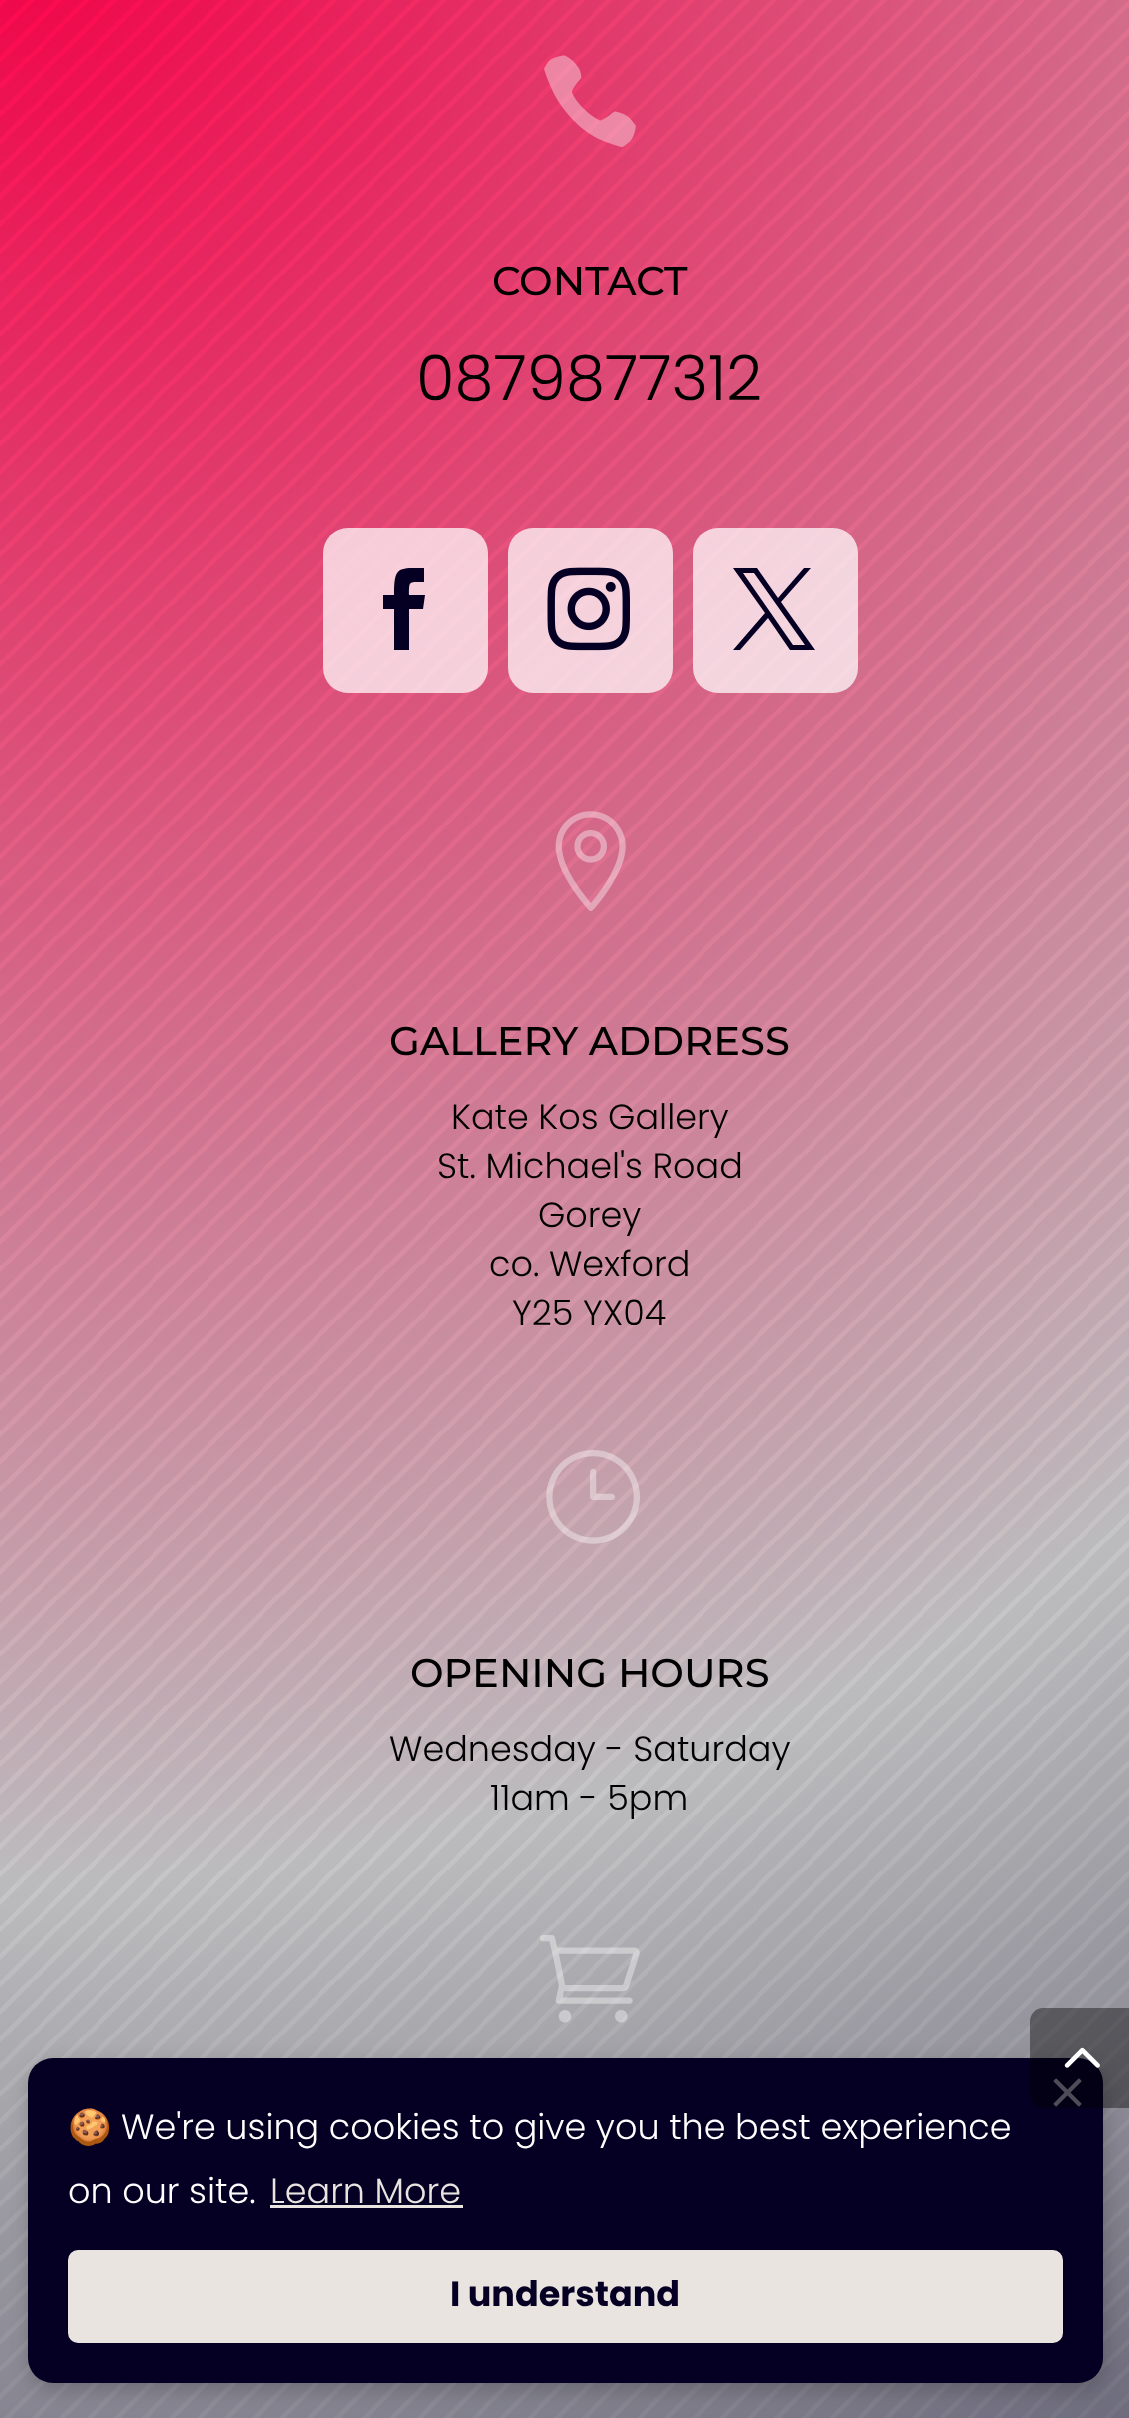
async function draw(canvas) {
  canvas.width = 1129
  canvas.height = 2418
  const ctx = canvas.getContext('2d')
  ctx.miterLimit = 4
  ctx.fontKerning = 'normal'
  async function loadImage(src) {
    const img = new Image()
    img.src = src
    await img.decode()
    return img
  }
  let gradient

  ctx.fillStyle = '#fff'
  ctx.fillRect(0, 0, 1129, 2418)
  gradient = ctx.createRadialGradient(0, -97, 0, 0, -97, 3816)
  gradient.addColorStop(0, '#ff0048')
  gradient.addColorStop(0.52, '#c6c6c6')
  gradient.addColorStop(1, '#050023')
  ctx.fillStyle = gradient
  ctx.fillRect(0, 0, 1129, 2418)
  ctx.drawImage(await loadImage('image0.png'), 0, 0, 1129, 2418)
  ctx.drawImage(await loadImage('image1.png'), 544, 55, 92, 92)
  ctx.font = '100 40px Montserrat'
  ctx.fillStyle = '#000'
  ctx.fillText('CONTACT', 492, 295)
  ctx.font = '300 62.5px Poppins'
  ctx.fillText('0879877312', 416, 400)
  ctx.fillStyle = '#ffffffba'
  ctx.beginPath()
  ctx.roundRect(323, 528, 165, 165, 25)
  ctx.fill()
  ctx.fillStyle = '#050023'
  ctx.beginPath()
  ctx.moveTo(394, 650)
  ctx.lineTo(409, 650)
  ctx.lineTo(409, 609)
  ctx.lineTo(423, 609)
  ctx.lineTo(425, 595)
  ctx.lineTo(409, 595)
  ctx.bezierCurveTo(409, 580, 409, 582, 424, 582)
  ctx.lineTo(424, 568)
  ctx.bezierCurveTo(398, 568, 394, 566, 394, 595)
  ctx.lineTo(383, 595)
  ctx.lineTo(383, 609)
  ctx.lineTo(394, 609)
  ctx.closePath()
  ctx.fill()
  ctx.fillStyle = '#ffffffba'
  ctx.beginPath()
  ctx.roundRect(508, 528, 165, 165, 25)
  ctx.fill()
  ctx.drawImage(await loadImage('image2.png'), 547, 567, 83, 84)
  ctx.beginPath()
  ctx.roundRect(693, 528, 165, 165, 25)
  ctx.fill()
  ctx.fillStyle = '#050023'
  ctx.beginPath()
  ctx.moveTo(733, 568)
  ctx.lineTo(765, 613)
  ctx.lineTo(733, 650)
  ctx.lineTo(740, 650)
  ctx.lineTo(768, 618)
  ctx.lineTo(790, 650)
  ctx.lineTo(815, 650)
  ctx.lineTo(781, 602)
  ctx.lineTo(811, 568)
  ctx.lineTo(804, 568)
  ctx.lineTo(778, 598)
  ctx.lineTo(757, 568)
  ctx.closePath()
  ctx.moveTo(743, 573)
  ctx.lineTo(754, 573)
  ctx.lineTo(805, 645)
  ctx.lineTo(793, 645)
  ctx.closePath()
  ctx.fill()
  ctx.drawImage(await loadImage('image3.png'), 555, 811, 71, 100)
  ctx.font = '100 40px Montserrat'
  ctx.fillStyle = '#000'
  ctx.fillText('GALLERY ADDRESS', 389, 1055)
  ctx.font = '300 35px Poppins'
  ctx.fillText('Kate Kos Gallery', 451, 1129)
  ctx.fillText('St. Michael\'s Road', 437, 1178)
  ctx.fillText('Gorey', 538, 1227)
  ctx.fillText('co. Wexford', 489, 1276)
  ctx.fillText('Y25 YX04', 512, 1325)
  ctx.drawImage(await loadImage('image4.png'), 546, 1450, 94, 94)
  ctx.font = '100 40px Montserrat'
  ctx.fillText('OPENING HOURS', 410, 1687)
  ctx.font = '300 35px Poppins'
  ctx.fillText('Wednesday - Saturday', 389, 1761)
  ctx.fillText('11am - 5pm', 490, 1810)
  ctx.drawImage(await loadImage('image5.png'), 540, 1935, 100, 88)
  ctx.fillStyle = '#00000033'
  ctx.filter = 'blur(10px)'
  ctx.beginPath()
  ctx.roundRect(30, 2065, 1075, 325, 25)
  ctx.fill()
  ctx.filter = 'none'
  ctx.fillStyle = '#050023'
  ctx.beginPath()
  ctx.roundRect(28, 2058, 1075, 325, 25)
  ctx.fill()
  ctx.drawImage(await loadImage('image7.png'), 1053, 2078, 29, 29)
  ctx.fillStyle = '#00000066'
  ctx.beginPath()
  ctx.moveTo(1043, 2008)
  ctx.lineTo(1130, 2008)
  ctx.lineTo(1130, 2108)
  ctx.lineTo(1043, 2108)
  ctx.bezierCurveTo(1036, 2108, 1030, 2102, 1030, 2095)
  ctx.lineTo(1030, 2021)
  ctx.bezierCurveTo(1030, 2014, 1036, 2008, 1043, 2008)
  ctx.closePath()
  ctx.fill()
  ctx.drawImage(await loadImage('image6.png'), 1064, 2047, 36, 21)
  ctx.font = '35px Noto Color Emoji'
  ctx.fillStyle = '#fff'
  ctx.fillText('🍪', 68, 2139)
  ctx.font = '300 35px Poppins'
  ctx.fillText('We\'re using cookies to give you the best experience', 121, 2139)
  ctx.fillText('on our site.', 68, 2203)
  ctx.fillStyle = '#eae4e1'
  ctx.fillText('Learn More', 270, 2203)
  ctx.fillRect(270, 2205, 193, 3)
  ctx.beginPath()
  ctx.roundRect(68, 2250, 995, 93, 10)
  ctx.fill()
  ctx.font = 'bold 35px Poppins'
  ctx.fillStyle = '#050023'
  ctx.fillText('I understand', 450, 2306)
}

draw(document.querySelector('canvas'))
